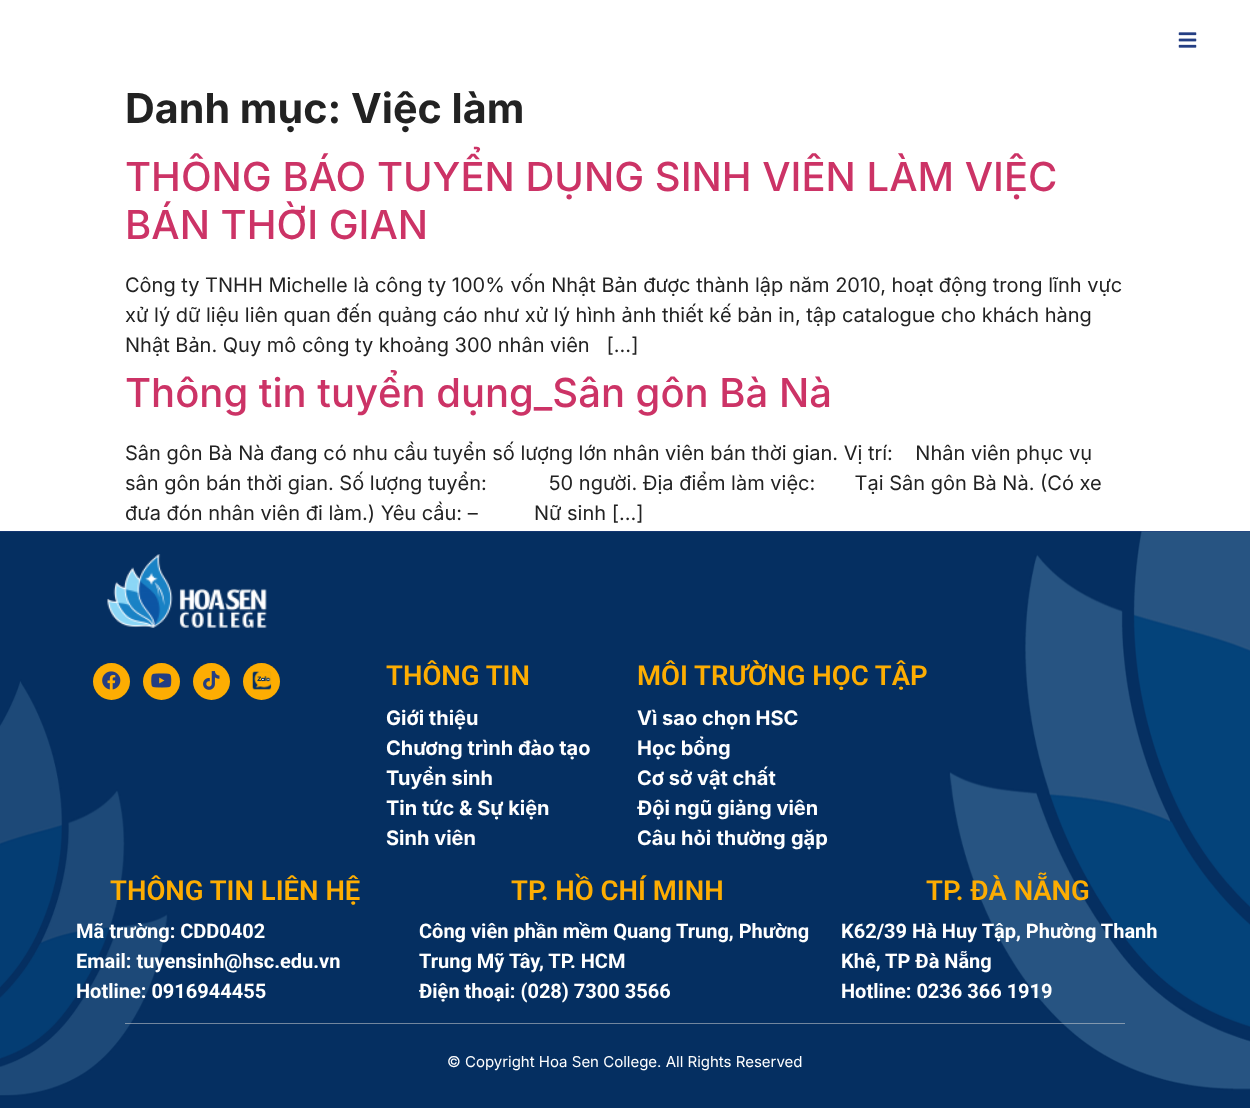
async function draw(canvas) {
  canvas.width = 1250
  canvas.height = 1108
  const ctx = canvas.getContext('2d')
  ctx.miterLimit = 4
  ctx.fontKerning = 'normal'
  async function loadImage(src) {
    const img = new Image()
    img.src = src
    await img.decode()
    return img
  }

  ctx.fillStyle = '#fff'
  ctx.fillRect(0, 0, 1250, 1108)
  ctx.drawImage(await loadImage('image0.png'), 1178, 32, 19, 16)
  ctx.font = 'bold 41.25px Inter'
  ctx.fillStyle = '#222'
  ctx.fillText('Danh mục: Việc làm', 125, 123)
  ctx.font = '500 40px Inter'
  ctx.fillStyle = '#c36'
  ctx.fillText('THÔNG BÁO TUYỂN DỤNG SINH VIÊN LÀM VIỆC', 125, 191)
  ctx.fillText('BÁN THỜI GIAN', 125, 239)
  ctx.font = '20px Inter'
  ctx.fillStyle = '#222'
  ctx.fillText('Công ty TNHH Michelle là công ty 100% vốn Nhật Bản được thành lập năm 2010, hoạt động trong lĩnh vực', 125, 292)
  ctx.fillText('xử lý dữ liệu liên quan đến quảng cáo như xử lý hình ảnh thiết kế bản in, tập catalogue cho khách hàng', 125, 322)
  ctx.fillText('Nhật Bản. Quy mô công ty khoảng 300 nhân viên   […]', 125, 352)
  ctx.font = '500 40px Inter'
  ctx.fillStyle = '#c36'
  ctx.fillText('Thông tin tuyển dụng_Sân gôn Bà Nà', 125, 407)
  ctx.font = '20px Inter'
  ctx.fillStyle = '#222'
  ctx.fillText('Sân gôn Bà Nà đang có nhu cầu tuyển số lượng lớn nhân viên bán thời gian. Vị trí:    Nhân viên phục vụ', 125, 460)
  ctx.fillText('sân gôn bán thời gian. Số lượng tuyển:           50 người. Địa điểm làm việc:       Tại Sân gôn Bà Nà. (Có xe', 125, 490)
  ctx.fillText('đưa đón nhân viên đi làm.) Yêu cầu: –          Nữ sinh […]', 125, 520)
  ctx.fillStyle = '#243e83'
  ctx.fillRect(0, 531, 1250, 1)
  ctx.drawImage(await loadImage('image1.png'), 0, 531, 1250, 577)
  ctx.drawImage(await loadImage('image2.png'), 107, 554, 160, 74)
  ctx.fillStyle = '#fdad02'
  ctx.beginPath()
  ctx.arc(111.5, 681.5, 18.5, 0, 2 * Math.PI)
  ctx.fill()
  ctx.drawImage(await loadImage('image3.png'), 102, 671, 19, 19)
  ctx.beginPath()
  ctx.arc(161.5, 681.5, 18.5, 0, 2 * Math.PI)
  ctx.fill()
  ctx.drawImage(await loadImage('image4.png'), 151, 673, 21, 15)
  ctx.beginPath()
  ctx.arc(211.5, 681.5, 18.5, 0, 2 * Math.PI)
  ctx.fill()
  ctx.drawImage(await loadImage('image5.png'), 203, 671, 17, 19)
  ctx.beginPath()
  ctx.arc(261.5, 681.5, 18.5, 0, 2 * Math.PI)
  ctx.fill()
  ctx.drawImage(await loadImage('image6.png'), 252, 671, 20, 19)
  ctx.font = '600 27.5px Roboto'
  ctx.fillText('THÔNG TIN', 386, 685)
  ctx.font = 'bold 20px Inter'
  ctx.fillStyle = '#fff'
  ctx.fillText('Giới thiệu', 386, 725)
  ctx.fillText('Chương trình đào tạo', 386, 755)
  ctx.fillText('Tuyển sinh', 386, 785)
  ctx.fillText('Tin tức & Sự kiện', 386, 815)
  ctx.fillText('Sinh viên', 386, 845)
  ctx.font = '600 27.5px Roboto'
  ctx.fillStyle = '#fdad02'
  ctx.fillText('MÔI TRƯỜNG HỌC TẬP', 637, 685)
  ctx.font = 'bold 20px Inter'
  ctx.fillStyle = '#fff'
  ctx.fillText('Vì sao chọn HSC', 637, 725)
  ctx.fillText('Học bổng', 637, 755)
  ctx.fillText('Cơ sở vật chất', 637, 785)
  ctx.fillText('Đội ngũ giảng viên', 637, 815)
  ctx.wordSpacing = '0.5px'
  ctx.fillText('Câu hỏi thường gặp', 637, 845)
  ctx.wordSpacing = '0px'
  ctx.font = '600 27.5px Roboto'
  ctx.fillStyle = '#fdad02'
  ctx.fillText('THÔNG TIN LIÊN HỆ', 110, 900)
  ctx.font = 'bold 20px Roboto'
  ctx.fillStyle = '#fff'
  ctx.fillText('Mã trường: CDD0402', 76, 938)
  ctx.fillText('Email: tuyensinh@hsc.edu.vn', 76, 968)
  ctx.fillText('Hotline: 0916944455', 76, 998)
  ctx.font = '600 27.5px Roboto'
  ctx.fillStyle = '#fdad02'
  ctx.fillText('TP. HỒ CHÍ MINH', 511, 900)
  ctx.font = 'bold 20px Roboto'
  ctx.fillStyle = '#fff'
  ctx.fillText('Công viên phần mềm Quang Trung, Phường', 419, 938)
  ctx.fillText('Trung Mỹ Tây, TP. HCM', 419, 968)
  ctx.fillText('Điện thoại: (028) 7300 3566', 419, 998)
  ctx.font = '600 27.5px Roboto'
  ctx.fillStyle = '#fdad02'
  ctx.fillText('TP. ĐÀ NẴNG', 926, 900)
  ctx.font = 'bold 20px Roboto'
  ctx.fillStyle = '#fff'
  ctx.fillText('K62/39 Hà Huy Tập, Phường Thanh', 841, 938)
  ctx.fillText('Khê, TP Đà Nẵng', 841, 968)
  ctx.fillText('Hotline: 0236 366 1919', 841, 998)
  ctx.fillStyle = '#d7d7d785'
  ctx.fillRect(125, 1023, 1000, 1)
  ctx.font = '15px Inter'
  ctx.fillStyle = '#fff'
  ctx.fillText('© Copyright Hoa Sen College. All Rights Reserved', 447, 1067)
}

draw(document.querySelector('canvas'))
